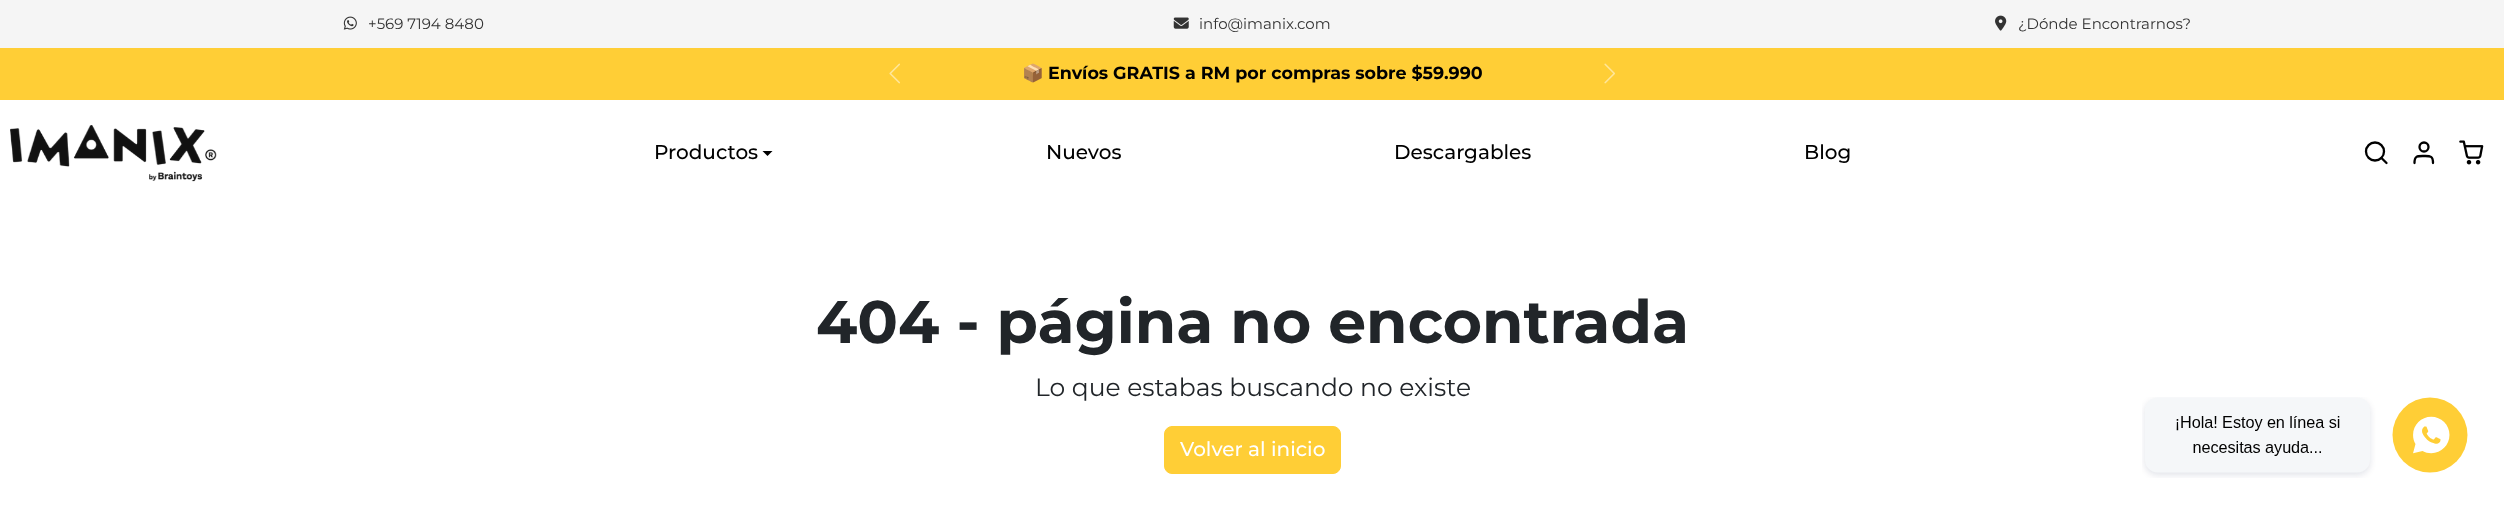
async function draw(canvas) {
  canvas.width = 2504
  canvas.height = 505
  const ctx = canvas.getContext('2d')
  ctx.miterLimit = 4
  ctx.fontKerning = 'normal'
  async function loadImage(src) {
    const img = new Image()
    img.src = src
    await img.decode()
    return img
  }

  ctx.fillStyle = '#fff'
  ctx.fillRect(0, 0, 2504, 505)
  ctx.fillStyle = '#f5f5f5'
  ctx.fillRect(0, 0, 2504, 48)
  ctx.drawImage(await loadImage('image0.png'), 343, 16, 14, 14)
  ctx.font = '15px Montserrat'
  ctx.fillStyle = '#333'
  ctx.fillText('+569 7194 8480', 368, 29)
  ctx.drawImage(await loadImage('image1.png'), 1173, 17, 16, 12)
  ctx.fillText('info@imanix.com', 1199, 29)
  ctx.drawImage(await loadImage('image2.png'), 1995, 15, 12, 16)
  ctx.fillText('¿Dónde Encontrarnos?', 2018, 29)
  ctx.fillStyle = '#ffce36'
  ctx.fillRect(0, 48, 2504, 52)
  ctx.drawImage(await loadImage('image3.png'), 889, 63, 11, 21)
  ctx.font = 'bold 17.5px Noto Color Emoji'
  ctx.fillStyle = '#000'
  ctx.fillText('📦', 1022, 79)
  ctx.font = 'bold 17.5px Montserrat'
  ctx.fillText('Envíos GRATIS a RM por compras sobre $59.990', 1048, 79)
  ctx.drawImage(await loadImage('image4.png'), 1604, 63, 11, 21)
  ctx.drawImage(await loadImage('image5.png'), 10, 125, 207, 57)
  ctx.font = '500 20px Montserrat'
  ctx.fillText('Productos', 654, 159)
  ctx.beginPath()
  ctx.moveTo(762.5, 151)
  ctx.lineTo(772.5, 151)
  ctx.lineTo(767.5, 156)
  ctx.closePath()
  ctx.fill()
  ctx.fillText('Nuevos', 1046, 159)
  ctx.fillText('Descargables', 1394, 159)
  ctx.fillText('Blog', 1804, 159)
  ctx.beginPath()
  ctx.arc(2375, 151.5, 9, 0, 2 * Math.PI)
  ctx.strokeStyle = '#000'
  ctx.lineWidth = 2.3
  ctx.stroke()
  ctx.beginPath()
  ctx.moveTo(2386.5, 163)
  ctx.lineTo(2381.5, 158)
  ctx.moveTo(2433, 163)
  ctx.bezierCurveTo(2433, 155.5, 2430, 156, 2424, 156)
  ctx.bezierCurveTo(2417.5, 156, 2414.5, 155.5, 2414.5, 163)
  ctx.lineCap = 'round'
  ctx.lineJoin = 'round'
  ctx.stroke()
  ctx.drawImage(await loadImage('image6.png'), 2459, 140, 25, 25)
  ctx.beginPath()
  ctx.arc(2424, 147, 4.5, 0, 2 * Math.PI)
  ctx.stroke()
  ctx.font = 'bold 60px Montserrat'
  ctx.fillStyle = '#212529'
  ctx.fillText('404 - página no encontrada', 816, 343)
  ctx.font = '25px Montserrat'
  ctx.fillText('Lo que estabas buscando no existe', 1035, 396)
  ctx.fillStyle = '#ffce36'
  ctx.beginPath()
  ctx.roundRect(1164.5, 426.5, 176, 47, 7.5)
  ctx.fill()
  ctx.strokeStyle = '#ffce36'
  ctx.lineWidth = 1
  ctx.lineJoin = 'miter'
  ctx.stroke()
  ctx.font = '500 20px Montserrat'
  ctx.fillStyle = '#fff'
  ctx.fillText('Volver al inicio', 1180, 456)
  ctx.drawImage(await loadImage('image7.png'), 2142, 397, 326, 81)
}

draw(document.querySelector('canvas'))
